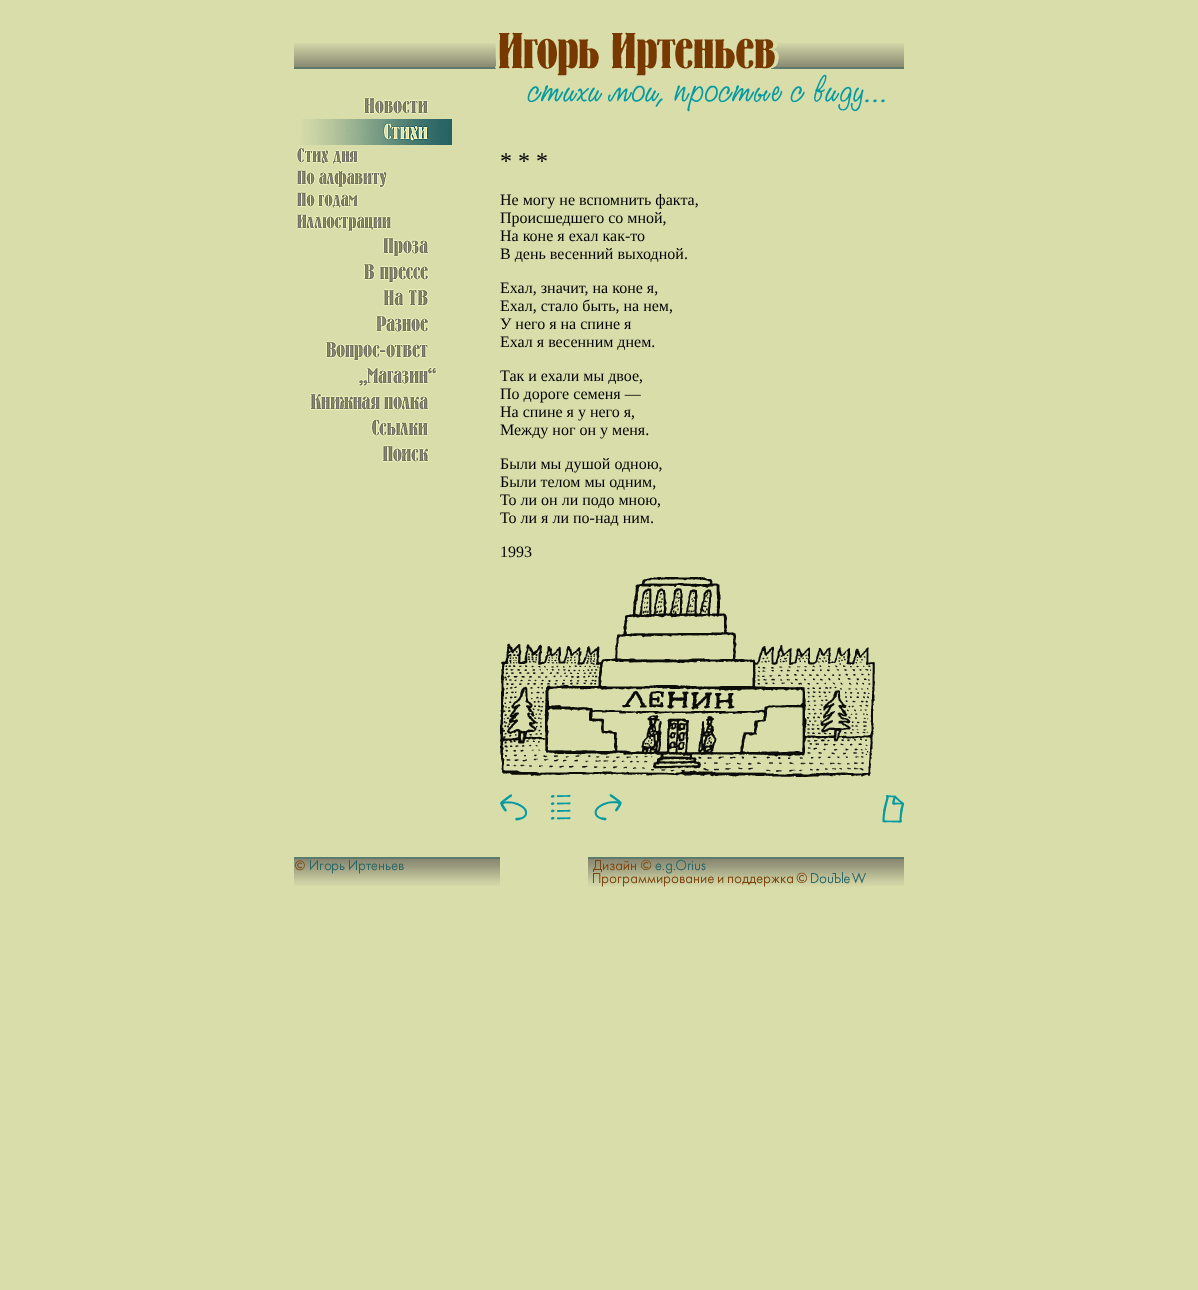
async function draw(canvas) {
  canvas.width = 1198
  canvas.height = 1290
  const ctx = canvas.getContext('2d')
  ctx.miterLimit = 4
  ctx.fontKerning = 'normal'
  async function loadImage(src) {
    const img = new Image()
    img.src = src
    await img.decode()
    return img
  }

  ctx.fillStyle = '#d8ddaa'
  ctx.fillRect(0, 0, 1198, 1290)
  ctx.drawImage(await loadImage('image0.png'), 294, 43, 192, 26)
  ctx.drawImage(await loadImage('image1.png'), 486, 43, 10, 26)
  ctx.drawImage(await loadImage('image2.png'), 499, 32, 272, 37)
  ctx.drawImage(await loadImage('image3.png'), 771, 40, 9, 29)
  ctx.drawImage(await loadImage('image4.png'), 780, 43, 124, 26)
  ctx.drawImage(await loadImage('image5.png'), 363, 97, 66, 18)
  ctx.drawImage(await loadImage('image6.png'), 301, 119, 151, 26)
  ctx.drawImage(await loadImage('image7.png'), 296, 147, 63, 18)
  ctx.drawImage(await loadImage('image8.png'), 296, 169, 92, 19)
  ctx.drawImage(await loadImage('image9.png'), 296, 191, 63, 18)
  ctx.drawImage(await loadImage('image10.png'), 296, 213, 96, 19)
  ctx.drawImage(await loadImage('image11.png'), 382, 237, 47, 20)
  ctx.drawImage(await loadImage('image12.png'), 363, 263, 66, 20)
  ctx.drawImage(await loadImage('image13.png'), 383, 289, 46, 18)
  ctx.drawImage(await loadImage('image14.png'), 375, 315, 54, 18)
  ctx.drawImage(await loadImage('image15.png'), 325, 341, 104, 20)
  ctx.drawImage(await loadImage('image16.png'), 358, 367, 79, 20)
  ctx.drawImage(await loadImage('image17.png'), 310, 393, 119, 18)
  ctx.drawImage(await loadImage('image18.png'), 371, 418, 58, 19)
  ctx.drawImage(await loadImage('image19.png'), 382, 445, 47, 18)
  ctx.drawImage(await loadImage('image20.png'), 557, 69, 270, 7)
  ctx.drawImage(await loadImage('image21.png'), 527, 76, 358, 36)
  ctx.font = '24px Liberation Serif'
  ctx.fillStyle = '#000'
  ctx.fillText('* * *', 500, 169)
  ctx.font = '16px Liberation Serif'
  ctx.fillText('Не могу не вспомнить факта,', 500, 205)
  ctx.fillText('Происшедшего со мной,', 500, 223)
  ctx.fillText('На коне я ехал как-то', 500, 241)
  ctx.fillText('В день весенний выходной.', 500, 259)
  ctx.fillText('Ехал, значит, на коне я,', 500, 293)
  ctx.fillText('Ехал, стало быть, на нем,', 500, 311)
  ctx.fillText('У него я на спине я', 500, 329)
  ctx.fillText('Ехал я весенним днем.', 500, 347)
  ctx.fillText('Так и ехали мы двое,', 500, 381)
  ctx.fillText('По дороге семеня —', 500, 399)
  ctx.fillText('На спине я у него я,', 500, 417)
  ctx.fillText('Между ног он у меня.', 500, 435)
  ctx.fillText('Были мы душой одною,', 500, 469)
  ctx.fillText('Были телом мы одним,', 500, 487)
  ctx.fillText('То ли он ли подо мною,', 500, 505)
  ctx.fillText('То ли я ли по-над ним.', 500, 523)
  ctx.fillText('1993', 500, 557)
  ctx.drawImage(await loadImage('image22.png'), 500, 577, 375, 200)
  ctx.drawImage(await loadImage('image23.png'), 500, 794, 28, 27)
  ctx.drawImage(await loadImage('image24.png'), 550, 794, 21, 26)
  ctx.drawImage(await loadImage('image25.png'), 594, 794, 28, 27)
  ctx.drawImage(await loadImage('image26.png'), 882, 795, 22, 28)
  ctx.drawImage(await loadImage('image27.png'), 294, 857, 110, 29)
  ctx.drawImage(await loadImage('image28.png'), 404, 857, 96, 29)
  ctx.drawImage(await loadImage('image29.png'), 588, 857, 278, 16)
  ctx.drawImage(await loadImage('image30.png'), 588, 873, 278, 14)
  ctx.drawImage(await loadImage('image31.png'), 866, 857, 38, 29)
}

draw(document.querySelector('canvas'))
